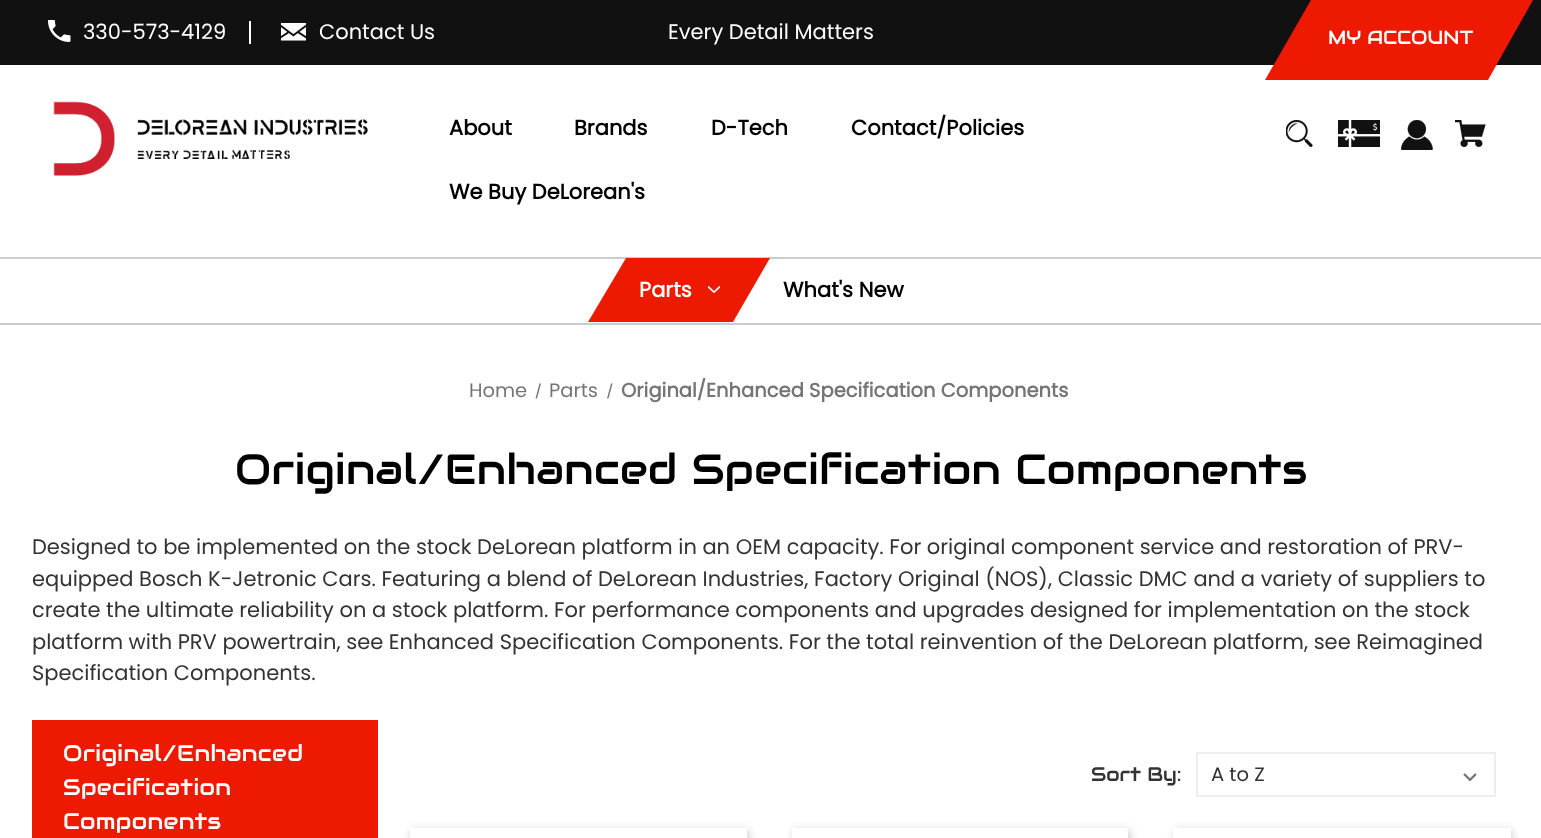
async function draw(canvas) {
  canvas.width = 1541
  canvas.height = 838
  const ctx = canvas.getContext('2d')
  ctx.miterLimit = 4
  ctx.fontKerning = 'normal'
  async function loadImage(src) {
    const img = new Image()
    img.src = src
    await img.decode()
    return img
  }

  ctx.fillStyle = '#fff'
  ctx.fillRect(0, 0, 1541, 838)
  ctx.fillStyle = '#111'
  ctx.fillRect(0, 0, 1541, 65)
  ctx.drawImage(await loadImage('image0.png'), 48, 20, 23, 22)
  ctx.font = '21px Poppins'
  ctx.fillStyle = '#fff'
  ctx.fillText('330-573-4129', 83, 39)
  ctx.fillRect(249, 21, 2, 23)
  ctx.drawImage(await loadImage('image1.png'), 281, 23, 25, 18)
  ctx.fillText('Contact Us', 319, 39)
  ctx.fillText('Every Detail Matters', 668, 39)
  ctx.fillStyle = '#ed1901'
  ctx.beginPath()
  ctx.moveTo(1311, 0)
  ctx.lineTo(1533, 0)
  ctx.lineTo(1488, 80)
  ctx.lineTo(1265, 80)
  ctx.closePath()
  ctx.fill()
  ctx.font = '19px Audiowide'
  ctx.fillStyle = '#fff'
  ctx.fillText('MY ACCOUNT', 1328, 44)
  ctx.drawImage(await loadImage('image2.png'), 53, 101, 315, 75)
  ctx.font = 'bold 21px Poppins'
  ctx.fillStyle = '#000'
  ctx.fillText('About', 449, 135)
  ctx.fillText('Brands', 574, 135)
  ctx.fillText('D-Tech', 711, 135)
  ctx.fillText('Contact/Policies', 851, 135)
  ctx.fillText('We Buy DeLorean\'s', 449, 199)
  ctx.drawImage(await loadImage('image3.png'), 1286, 120, 27, 27)
  ctx.drawImage(await loadImage('image4.png'), 1338, 120, 42, 27)
  ctx.drawImage(await loadImage('image5.png'), 1401, 120, 32, 30)
  ctx.drawImage(await loadImage('image6.png'), 1455, 120, 31, 27)
  ctx.fillStyle = '#ccc'
  ctx.fillRect(0, 257, 1541, 2)
  ctx.fillRect(0, 323, 1541, 2)
  ctx.fillStyle = '#ed1901'
  ctx.beginPath()
  ctx.moveTo(626, 258)
  ctx.lineTo(770, 258)
  ctx.lineTo(733, 322)
  ctx.lineTo(588, 322)
  ctx.closePath()
  ctx.fill()
  ctx.fillStyle = '#fff'
  ctx.fillText('Parts', 639, 297)
  ctx.drawImage(await loadImage('image7.png'), 708, 285, 12, 9)
  ctx.fillStyle = '#000'
  ctx.fillText('What\'s New', 783, 297)
  ctx.font = '19.5px Poppins'
  ctx.fillStyle = '#757575'
  ctx.fillText('Home', 469, 397)
  ctx.beginPath()
  ctx.moveTo(539.5, 383.5)
  ctx.lineTo(541, 383.5)
  ctx.lineTo(537, 398.5)
  ctx.lineTo(535.5, 398.5)
  ctx.closePath()
  ctx.fill()
  ctx.fillText('Parts', 549, 397)
  ctx.beginPath()
  ctx.moveTo(611, 383.5)
  ctx.lineTo(612.5, 383.5)
  ctx.lineTo(608.5, 398.5)
  ctx.lineTo(607, 398.5)
  ctx.closePath()
  ctx.fill()
  ctx.font = 'bold 19.5px Poppins'
  ctx.fillText('Original/Enhanced Specification Components', 621, 397)
  ctx.letterSpacing = '0.4px'
  ctx.font = '42px Audiowide'
  ctx.fillStyle = '#000'
  ctx.fillText('Original/Enhanced Specification Components', 235, 484)
  ctx.letterSpacing = '0px'
  ctx.font = '21px Poppins'
  ctx.fillStyle = '#333'
  ctx.fillText('Designed to be implemented on the stock DeLorean platform in an OEM capacity. For original component service and restoration of PRV-', 32, 554)
  ctx.fillText('equipped Bosch K-Jetronic Cars. Featuring a blend of DeLorean Industries, Factory Original (NOS), Classic DMC and a variety of suppliers to', 32, 586)
  ctx.fillText('create the ultimate reliability on a stock platform. For performance components and upgrades designed for implementation on the stock', 32, 617)
  ctx.fillText('platform with PRV powertrain, see Enhanced Specification Components. For the total reinvention of the DeLorean platform, see Reimagined', 32, 649)
  ctx.fillText('Specification Components.', 32, 680)
  ctx.fillStyle = '#ed1901'
  ctx.fillRect(32, 720, 346, 118)
  ctx.letterSpacing = '0.4px'
  ctx.font = '22.5px Audiowide'
  ctx.fillStyle = '#fff'
  ctx.fillText('Original/Enhanced', 63, 761)
  ctx.fillText('Specification', 63, 795)
  ctx.fillText('Components', 63, 829)
  ctx.letterSpacing = '0px'
  ctx.font = '19.5px Audiowide'
  ctx.fillStyle = '#333'
  ctx.fillText('Sort By:', 1091, 781)
  ctx.drawImage(await loadImage('image8.png'), 1463, 773, 14, 9)
  ctx.strokeStyle = '#eee'
  ctx.lineWidth = 2
  ctx.strokeRect(1197, 753, 298, 43)
  ctx.font = '19.5px Poppins'
  ctx.fillText('A to Z', 1211, 781)
  ctx.save()
  ctx.beginPath()
  ctx.moveTo(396, 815)
  ctx.lineTo(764, 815)
  ctx.lineTo(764, 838)
  ctx.lineTo(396, 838)
  ctx.closePath()
  ctx.moveTo(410, 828)
  ctx.lineTo(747, 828)
  ctx.lineTo(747, 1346)
  ctx.lineTo(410, 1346)
  ctx.closePath()
  ctx.clip('evenodd')
  ctx.fillStyle = '#00000033'
  ctx.filter = 'blur(4.5px)'
  ctx.beginPath()
  ctx.rect(411, 830, 338, 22)
  ctx.fill()
  ctx.filter = 'none'
  ctx.restore()
  ctx.save()
  ctx.beginPath()
  ctx.moveTo(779, 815)
  ctx.lineTo(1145, 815)
  ctx.lineTo(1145, 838)
  ctx.lineTo(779, 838)
  ctx.closePath()
  ctx.moveTo(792, 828)
  ctx.lineTo(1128, 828)
  ctx.lineTo(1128, 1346)
  ctx.lineTo(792, 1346)
  ctx.closePath()
  ctx.clip('evenodd')
  ctx.fillStyle = '#00000033'
  ctx.filter = 'blur(4.5px)'
  ctx.beginPath()
  ctx.rect(794, 830, 336, 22)
  ctx.fill()
  ctx.filter = 'none'
  ctx.restore()
  ctx.save()
  ctx.beginPath()
  ctx.moveTo(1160, 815)
  ctx.lineTo(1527, 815)
  ctx.lineTo(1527, 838)
  ctx.lineTo(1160, 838)
  ctx.closePath()
  ctx.moveTo(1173, 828)
  ctx.lineTo(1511, 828)
  ctx.lineTo(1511, 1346)
  ctx.lineTo(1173, 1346)
  ctx.closePath()
  ctx.clip('evenodd')
  ctx.fillStyle = '#00000033'
  ctx.filter = 'blur(4.5px)'
  ctx.beginPath()
  ctx.rect(1175, 830, 337, 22)
  ctx.fill()
  ctx.filter = 'none'
  ctx.restore()
}

draw(document.querySelector('canvas'))
